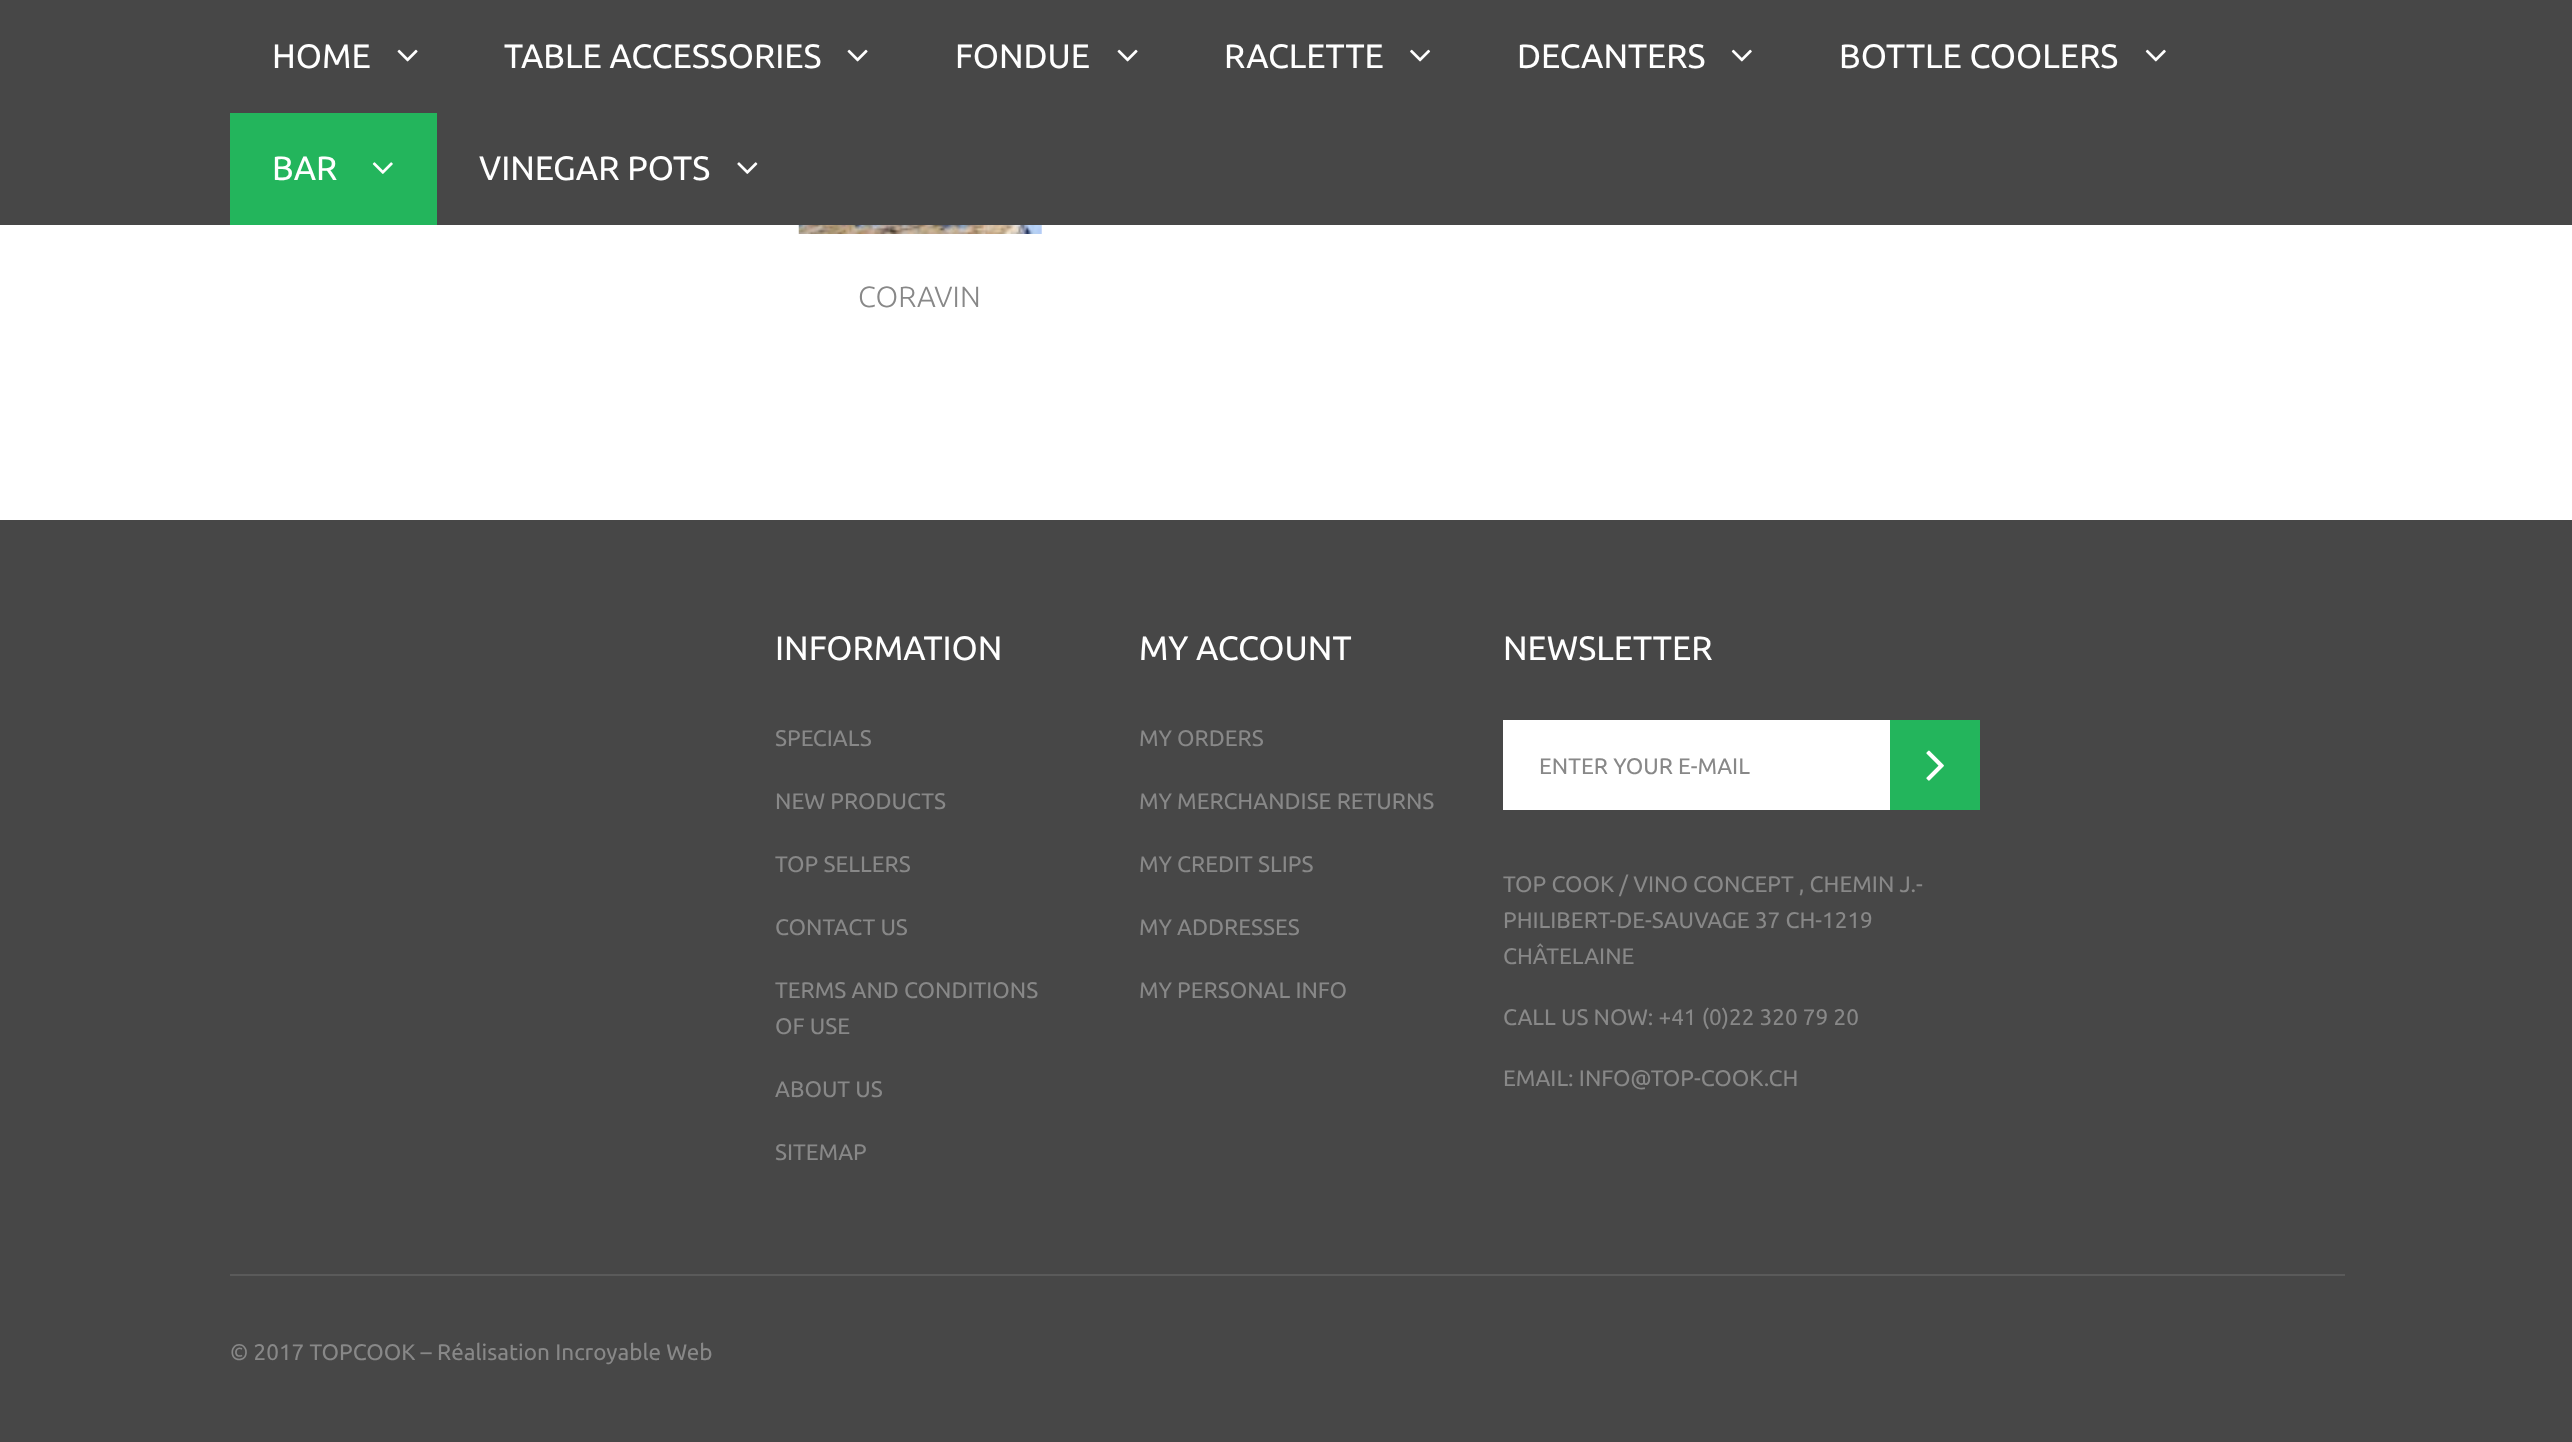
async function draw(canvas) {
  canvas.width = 2572
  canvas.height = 1442
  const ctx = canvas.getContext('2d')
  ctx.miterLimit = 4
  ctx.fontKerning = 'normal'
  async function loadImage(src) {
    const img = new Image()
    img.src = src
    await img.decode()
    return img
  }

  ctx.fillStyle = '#fff'
  ctx.fillRect(0, 0, 2572, 1442)
  ctx.fillStyle = '#474747'
  ctx.fillRect(0, 0, 2572, 225)
  ctx.font = '33.75px Ubuntu'
  ctx.fillStyle = '#fff'
  ctx.fillText('HOME', 272, 68)
  ctx.drawImage(await loadImage('image0.png'), 397, 49, 21, 13)
  ctx.fillText('TABLE ACCESSORIES', 504, 68)
  ctx.drawImage(await loadImage('image0.png'), 847, 49, 21, 13)
  ctx.fillText('FONDUE', 955, 68)
  ctx.drawImage(await loadImage('image0.png'), 1117, 49, 21, 13)
  ctx.fillText('RACLETTE', 1224, 68)
  ctx.drawImage(await loadImage('image1.png'), 1410, 49, 21, 13)
  ctx.fillText('DECANTERS', 1517, 68)
  ctx.drawImage(await loadImage('image2.png'), 1731, 49, 21, 13)
  ctx.fillText('BOTTLE COOLERS', 1839, 68)
  ctx.drawImage(await loadImage('image2.png'), 2145, 49, 21, 13)
  ctx.fillStyle = '#23b55c'
  ctx.fillRect(230, 113, 207, 112)
  ctx.fillStyle = '#fff'
  ctx.fillText('BAR', 272, 180)
  ctx.drawImage(await loadImage('image3.png'), 372, 162, 21, 12)
  ctx.fillText('VINEGAR POTS', 479, 180)
  ctx.drawImage(await loadImage('image4.png'), 737, 162, 21, 12)
  ctx.drawImage(await loadImage('image5.png'), 798, 225, 244, 9)
  ctx.font = '300 29.25px Ubuntu'
  ctx.fillStyle = '#888'
  ctx.fillText('CORAVIN', 858, 307)
  ctx.fillStyle = '#474747'
  ctx.fillRect(0, 520, 2572, 922)
  ctx.font = '33.75px Ubuntu'
  ctx.fillStyle = '#fff'
  ctx.fillText('INFORMATION', 775, 660)
  ctx.font = '22.5px Ubuntu'
  ctx.fillStyle = '#888'
  ctx.fillText('SPECIALS', 775, 746)
  ctx.fillText('NEW PRODUCTS', 775, 809)
  ctx.fillText('TOP SELLERS', 775, 872)
  ctx.fillText('CONTACT US', 775, 935)
  ctx.fillText('TERMS AND CONDITIONS', 775, 998)
  ctx.fillText('OF USE', 775, 1034)
  ctx.fillText('ABOUT US', 775, 1097)
  ctx.fillText('SITEMAP', 775, 1160)
  ctx.font = '33.75px Ubuntu'
  ctx.fillStyle = '#fff'
  ctx.fillText('MY ACCOUNT', 1139, 660)
  ctx.font = '22.5px Ubuntu'
  ctx.fillStyle = '#888'
  ctx.fillText('MY ORDERS', 1139, 746)
  ctx.fillText('MY MERCHANDISE RETURNS', 1139, 809)
  ctx.fillText('MY CREDIT SLIPS', 1139, 872)
  ctx.fillText('MY ADDRESSES', 1139, 935)
  ctx.fillText('MY PERSONAL INFO', 1139, 998)
  ctx.font = '33.75px Ubuntu'
  ctx.fillStyle = '#fff'
  ctx.fillText('NEWSLETTER', 1503, 660)
  ctx.fillRect(1503, 720, 387, 90)
  ctx.font = '22.5px Ubuntu'
  ctx.fillStyle = '#888'
  ctx.fillText('ENTER YOUR E-MAIL', 1539, 774)
  ctx.fillStyle = '#23b55c'
  ctx.fillRect(1890, 720, 90, 90)
  ctx.drawImage(await loadImage('image6.png'), 1926, 750, 18, 31)
  ctx.fillStyle = '#888'
  ctx.fillText('TOP COOK / VINO CONCEPT , CHEMIN J.-', 1503, 892)
  ctx.fillText('PHILIBERT-DE-SAUVAGE 37 CH-1219', 1503, 928)
  ctx.fillText('CHÂTELAINE', 1503, 964)
  ctx.fillText('CALL US NOW: +41 (0)22 320 79 20', 1503, 1025)
  ctx.fillText('EMAIL: INFO@TOP-COOK.CH', 1503, 1086)
  ctx.fillStyle = '#5a5a5a'
  ctx.fillRect(230, 1274, 2115, 2)
  ctx.fillStyle = '#888'
  ctx.fillText('© 2017 TOPCOOK – Réalisation Incroyable Web', 230, 1360)
}

draw(document.querySelector('canvas'))
